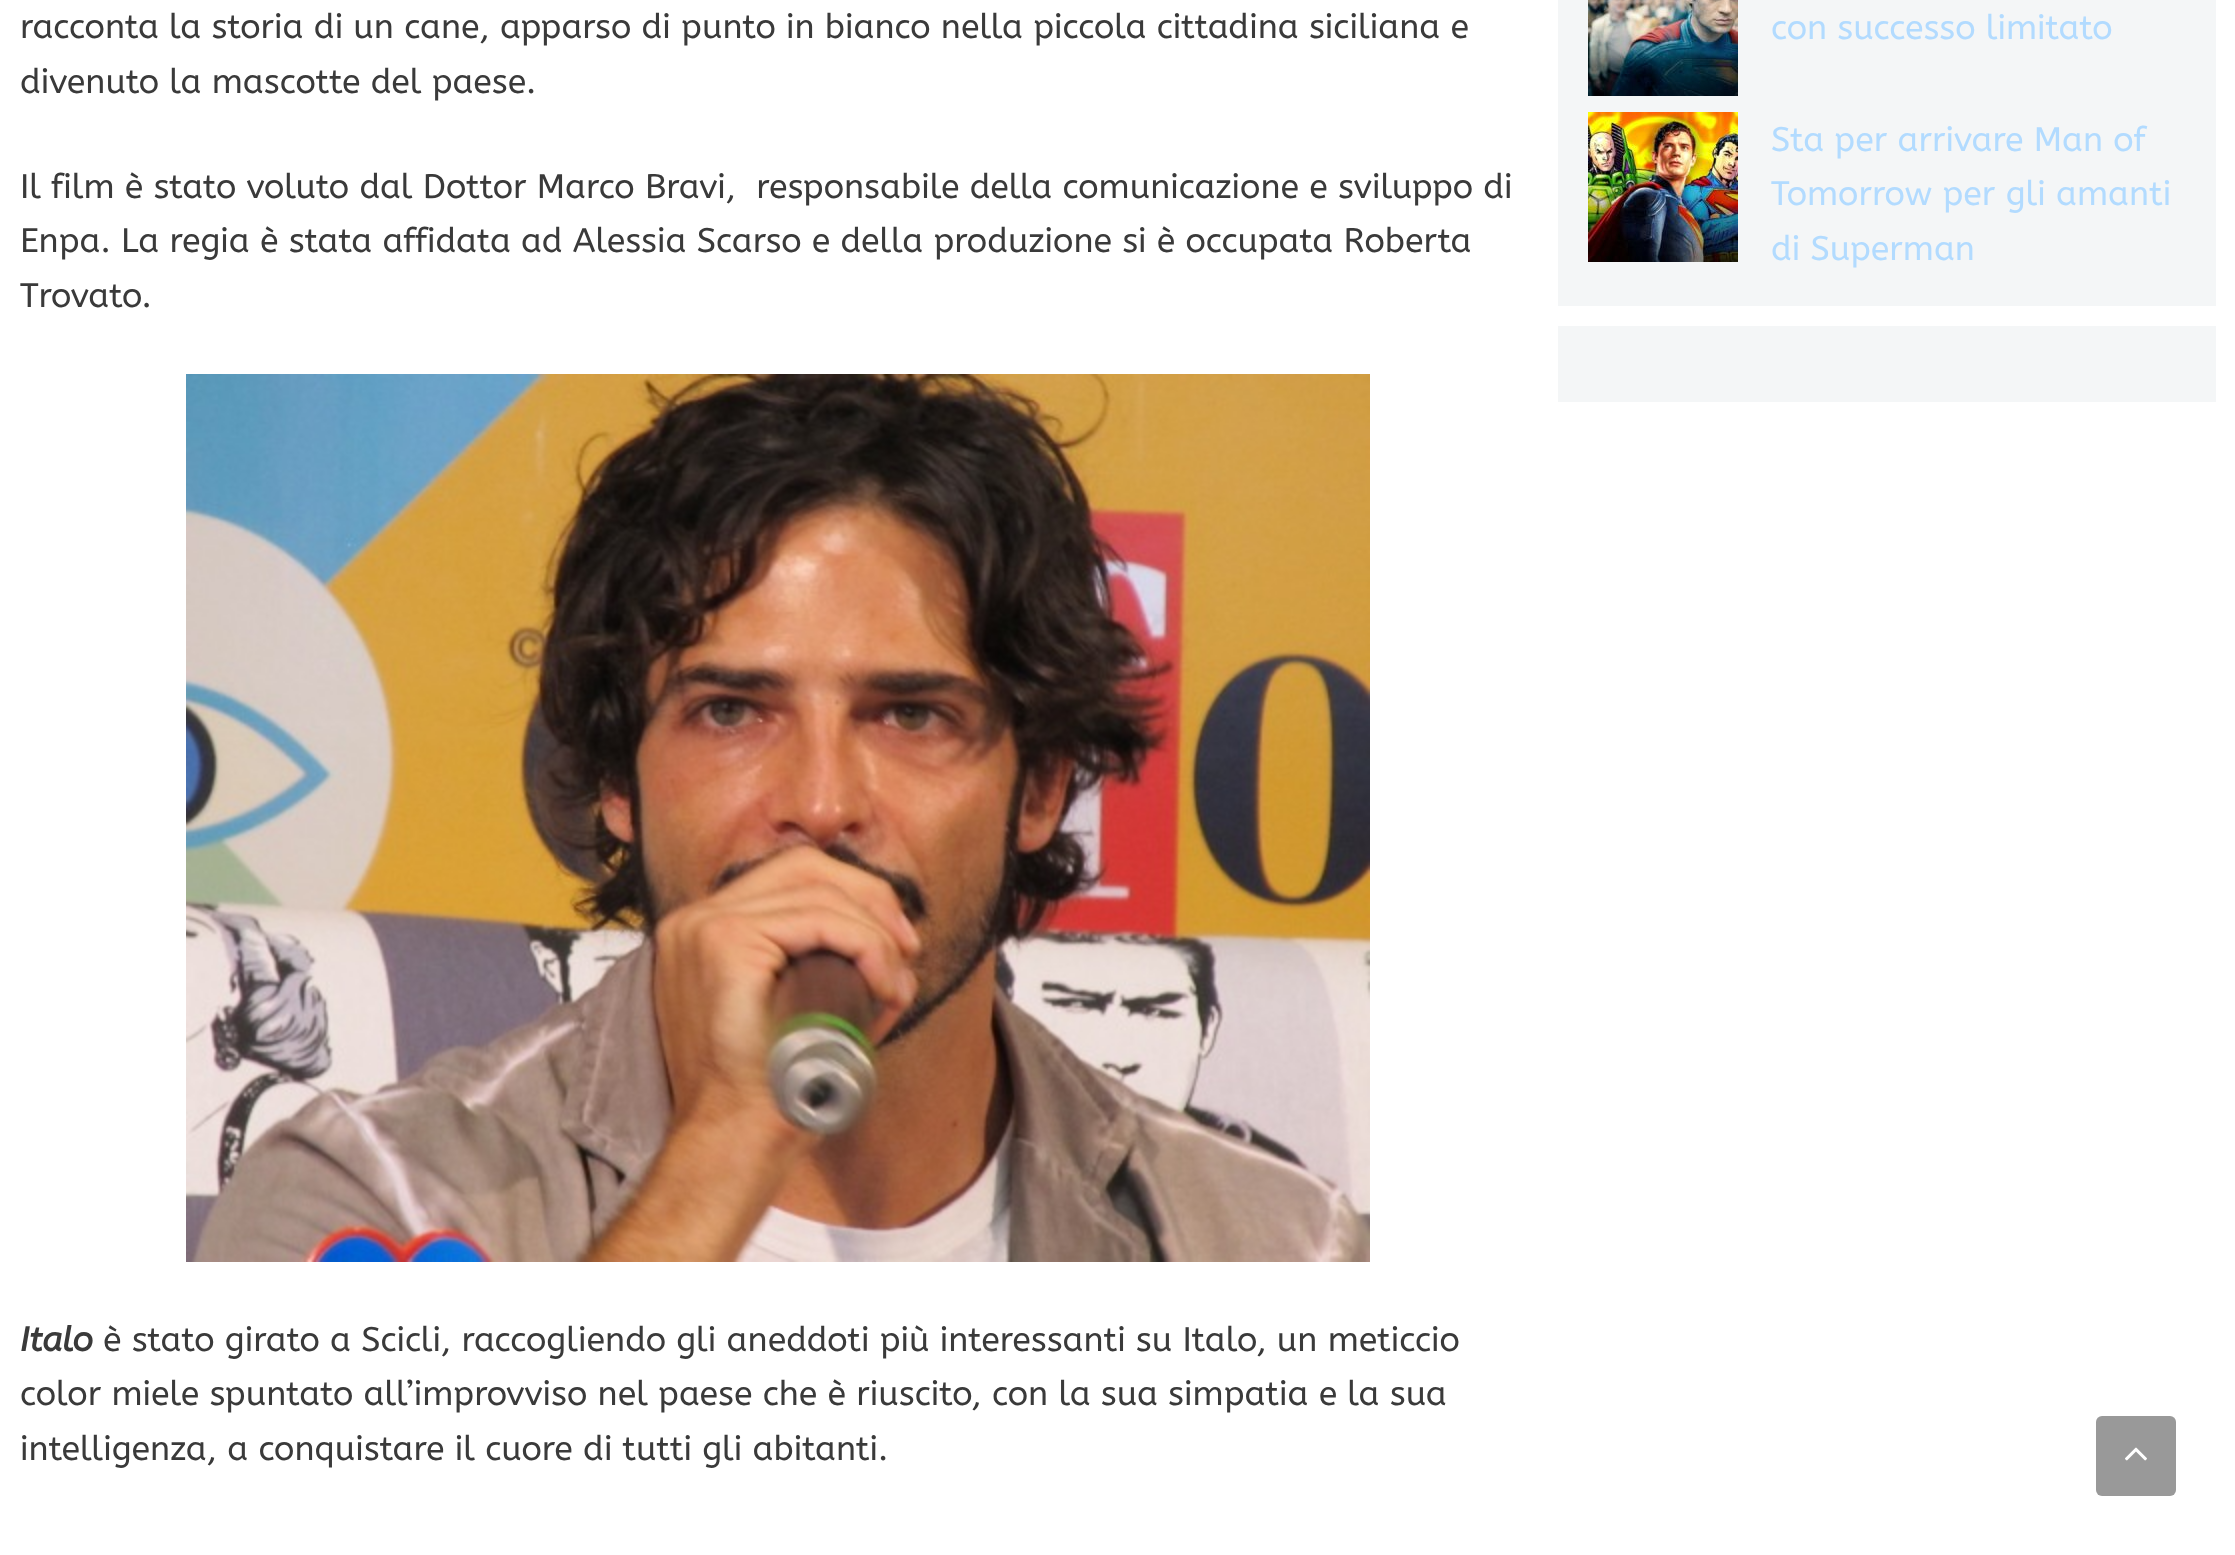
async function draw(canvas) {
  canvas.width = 2235
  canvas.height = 1555
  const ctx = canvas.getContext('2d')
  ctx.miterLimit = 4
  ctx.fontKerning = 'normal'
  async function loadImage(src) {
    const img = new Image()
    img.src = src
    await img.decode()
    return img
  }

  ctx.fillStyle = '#fff'
  ctx.fillRect(0, 0, 2235, 1555)
  ctx.font = '34px ABeeZee'
  ctx.fillStyle = '#3a3a3a'
  ctx.fillText('racconta la storia di un cane, apparso di punto in bianco nella piccola cittadina siciliana e', 20, 38)
  ctx.fillText('divenuto la mascotte del paese.', 20, 93)
  ctx.fillText('Il film è stato voluto dal Dottor Marco Bravi,  responsabile della comunicazione e sviluppo di', 20, 198)
  ctx.fillText('Enpa. La regia è stata affidata ad Alessia Scarso e della produzione si è occupata Roberta', 20, 252)
  ctx.fillText('Trovato.', 20, 307)
  ctx.drawImage(await loadImage('image0.png'), 186, 374, 1184, 888)
  ctx.font = 'italic bold 34px ABeeZee'
  ctx.fillText('Italo', 20, 1351)
  ctx.font = '34px ABeeZee'
  ctx.fillText('è stato girato a Scicli, raccogliendo gli aneddoti più interessanti su Italo, un meticcio', 103, 1351)
  ctx.fillText('color miele spuntato all’improvviso nel paese che è riuscito, con la sua simpatia e la sua', 20, 1405)
  ctx.fillText('intelligenza, a conquistare il cuore di tutti gli abitanti.', 20, 1460)
  ctx.fillStyle = '#f4f6f7'
  ctx.fillRect(1558, 0, 658, 306)
  ctx.drawImage(await loadImage('image1.png'), 1588, 0, 150, 96)
  ctx.fillStyle = '#b2dbff'
  ctx.fillText('con successo limitato', 1771, 39)
  ctx.drawImage(await loadImage('image2.png'), 1588, 112, 150, 150)
  ctx.fillText('Sta per arrivare Man of', 1771, 151)
  ctx.fillText('Tomorrow per gli amanti', 1771, 205)
  ctx.fillText('di Superman', 1771, 260)
  ctx.fillStyle = '#f4f6f7'
  ctx.fillRect(1558, 326, 658, 76)
  ctx.fillStyle = '#999'
  ctx.beginPath()
  ctx.roundRect(2096, 1416, 80, 80, 6)
  ctx.fill()
  ctx.drawImage(await loadImage('image3.png'), 2125, 1447, 22, 14)
}

draw(document.querySelector('canvas'))
